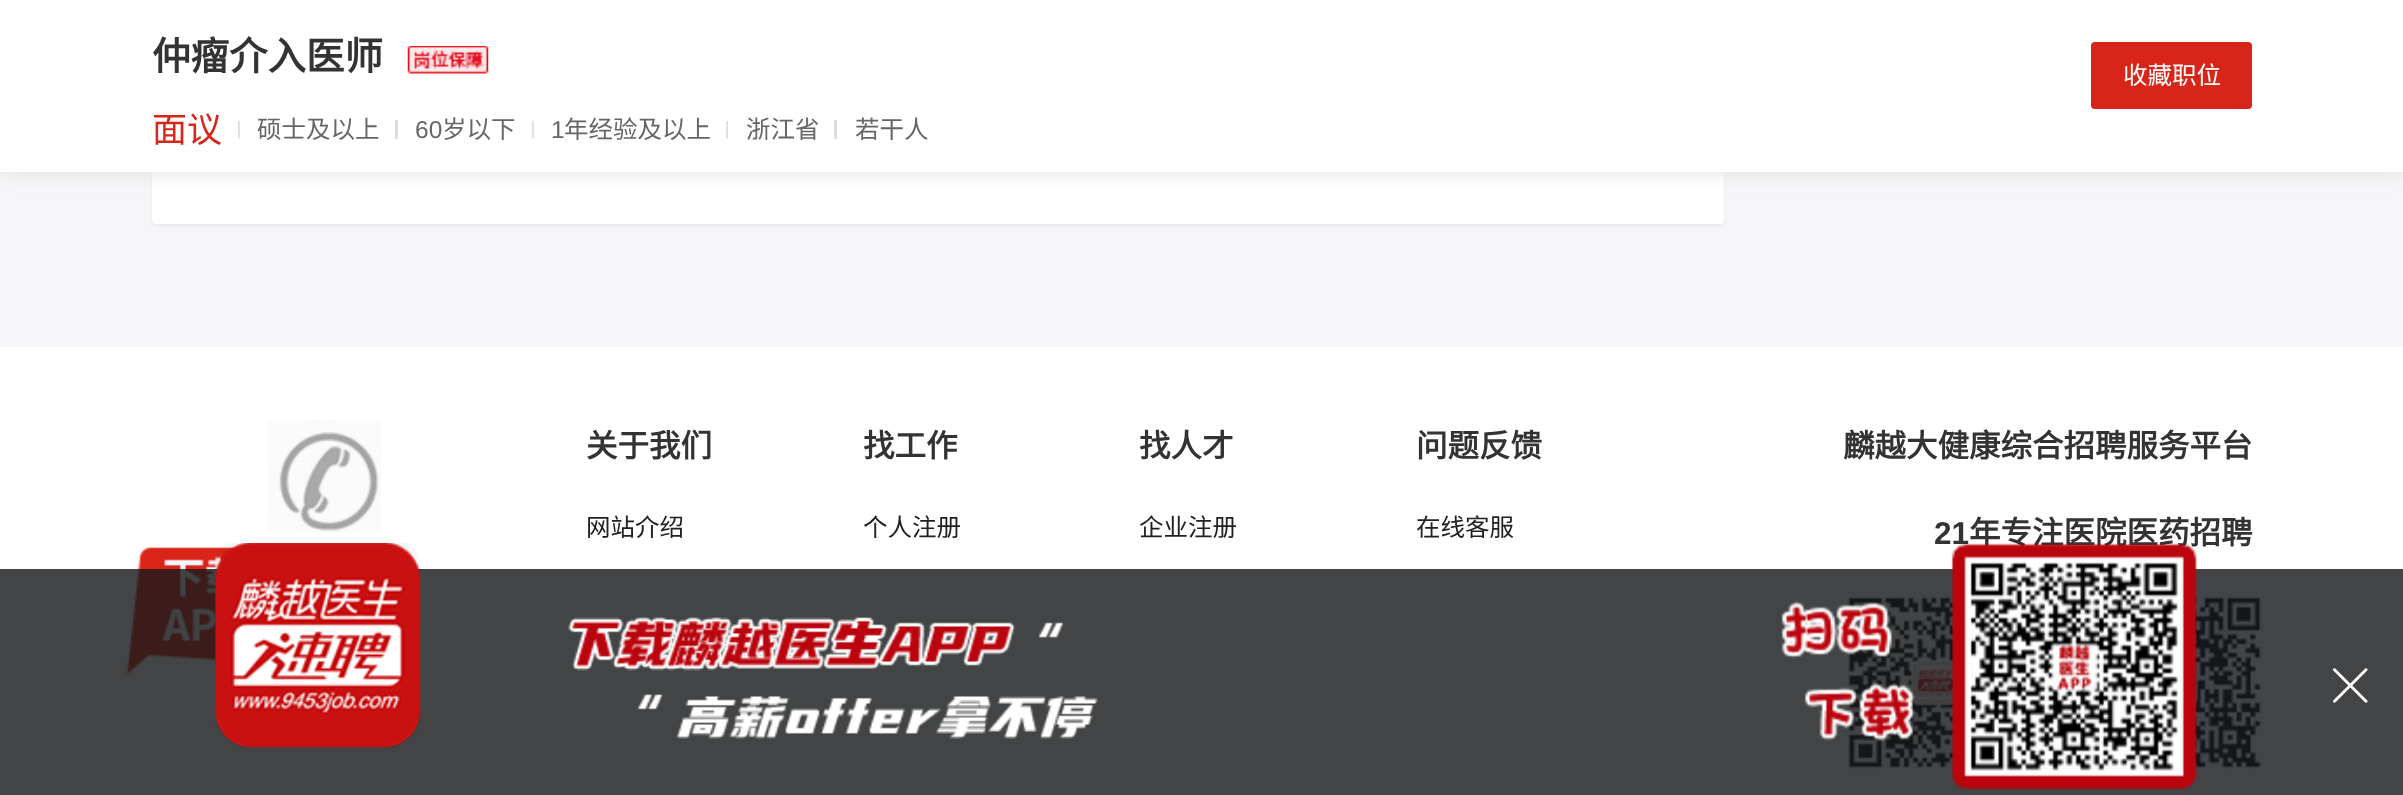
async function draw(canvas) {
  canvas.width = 2403
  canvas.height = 795
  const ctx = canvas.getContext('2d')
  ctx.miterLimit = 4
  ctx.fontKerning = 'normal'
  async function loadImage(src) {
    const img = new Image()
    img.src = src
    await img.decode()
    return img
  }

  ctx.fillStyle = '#f6f6f8'
  ctx.fillRect(0, 0, 2403, 795)
  ctx.fillStyle = '#0000000d'
  ctx.filter = 'blur(2px)'
  ctx.beginPath()
  ctx.roundRect(152, -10, 1572, 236, 4)
  ctx.fill()
  ctx.filter = 'none'
  ctx.fillStyle = '#fff'
  ctx.beginPath()
  ctx.roundRect(152, -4, 1572, 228, 4)
  ctx.fill()
  ctx.fillStyle = '#e0e0e0'
  ctx.filter = 'blur(9px)'
  ctx.beginPath()
  ctx.rect(0, 0, 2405, 172)
  ctx.fill()
  ctx.filter = 'none'
  ctx.fillStyle = '#fff'
  ctx.fillRect(0, 0, 2403, 172)
  ctx.font = 'bold 38.5px Noto Sans CJK SC'
  ctx.fillStyle = '#333'
  ctx.fillText('仲瘤介入医师', 152, 70)
  ctx.drawImage(await loadImage('image0.png'), 407, 46, 82, 28)
  ctx.drawImage(await loadImage('image1.png'), 238, 120, 2, 19)
  ctx.font = '35px Noto Sans CJK SC'
  ctx.fillStyle = '#d72519'
  ctx.fillText('面议', 152, 142)
  ctx.fillStyle = '#ddddde'
  ctx.fillRect(395, 120, 3, 19)
  ctx.font = '24.5px Noto Sans CJK SC'
  ctx.fillStyle = '#666'
  ctx.fillText('硕士及以上', 257, 138)
  ctx.drawImage(await loadImage('image1.png'), 532, 120, 2, 19)
  ctx.font = '24.5px Liberation Sans'
  ctx.fillText('60', 415, 138)
  ctx.font = '24.5px Noto Sans CJK SC'
  ctx.fillText('岁以下', 442, 138)
  ctx.drawImage(await loadImage('image2.png'), 726, 120, 2, 19)
  ctx.font = '24.5px Liberation Sans'
  ctx.fillText('1', 551, 138)
  ctx.font = '24.5px Noto Sans CJK SC'
  ctx.fillText('年经验及以上', 564, 138)
  ctx.fillStyle = '#ddddde'
  ctx.fillRect(834, 120, 3, 19)
  ctx.fillStyle = '#666'
  ctx.fillText('浙江省', 746, 138)
  ctx.fillText('若干人', 855, 138)
  ctx.fillStyle = '#d72519'
  ctx.beginPath()
  ctx.roundRect(2091, 42, 161, 67, 4)
  ctx.fill()
  ctx.fillStyle = '#fff'
  ctx.fillText('收藏职位', 2123, 84)
  ctx.fillRect(0, 347, 2403, 448)
  ctx.drawImage(await loadImage('image3.png'), 268, 420, 113, 113)
  ctx.font = 'bold 31.5px Noto Sans CJK SC'
  ctx.fillStyle = '#333'
  ctx.fillText('关于我们', 586, 457)
  ctx.font = '24.5px Noto Sans CJK SC'
  ctx.fillStyle = '#212121'
  ctx.fillText('网站介绍', 586, 536)
  ctx.font = 'bold 31.5px Noto Sans CJK SC'
  ctx.fillStyle = '#333'
  ctx.fillText('找工作', 863, 457)
  ctx.font = '24.5px Noto Sans CJK SC'
  ctx.fillStyle = '#212121'
  ctx.fillText('个人注册', 863, 536)
  ctx.font = 'bold 31.5px Noto Sans CJK SC'
  ctx.fillStyle = '#333'
  ctx.fillText('找人才', 1139, 457)
  ctx.font = '24.5px Noto Sans CJK SC'
  ctx.fillStyle = '#212121'
  ctx.fillText('企业注册', 1139, 536)
  ctx.font = 'bold 31.5px Noto Sans CJK SC'
  ctx.fillStyle = '#333'
  ctx.fillText('问题反馈', 1416, 457)
  ctx.font = '24.5px Noto Sans CJK SC'
  ctx.fillStyle = '#212121'
  ctx.fillText('在线客服', 1416, 536)
  ctx.font = 'bold 31.5px Noto Sans CJK SC'
  ctx.fillStyle = '#333'
  ctx.fillText('麟越大健康综合招聘服务平台', 1843, 457)
  ctx.font = 'bold 31.5px Liberation Sans'
  ctx.fillText('21', 1934, 544)
  ctx.font = 'bold 31.5px Noto Sans CJK SC'
  ctx.fillText('年专注医院医药招聘', 1969, 544)
  ctx.drawImage(await loadImage('image4.png'), 1847, 596, 108, 173)
  ctx.drawImage(await loadImage('image5.png'), 2193, 596, 69, 173)
  ctx.drawImage(await loadImage('image9.png'), 124, 547, 113, 129)
  ctx.fillStyle = '#191b1cd1'
  ctx.fillRect(0, 569, 2403, 226)
  ctx.drawImage(await loadImage('image6.png'), 214, 543, 884, 205)
  ctx.drawImage(await loadImage('image7.png'), 1781, 543, 416, 247)
  ctx.drawImage(await loadImage('image8.png'), 2333, 668, 35, 35)
}

draw(document.querySelector('canvas'))
